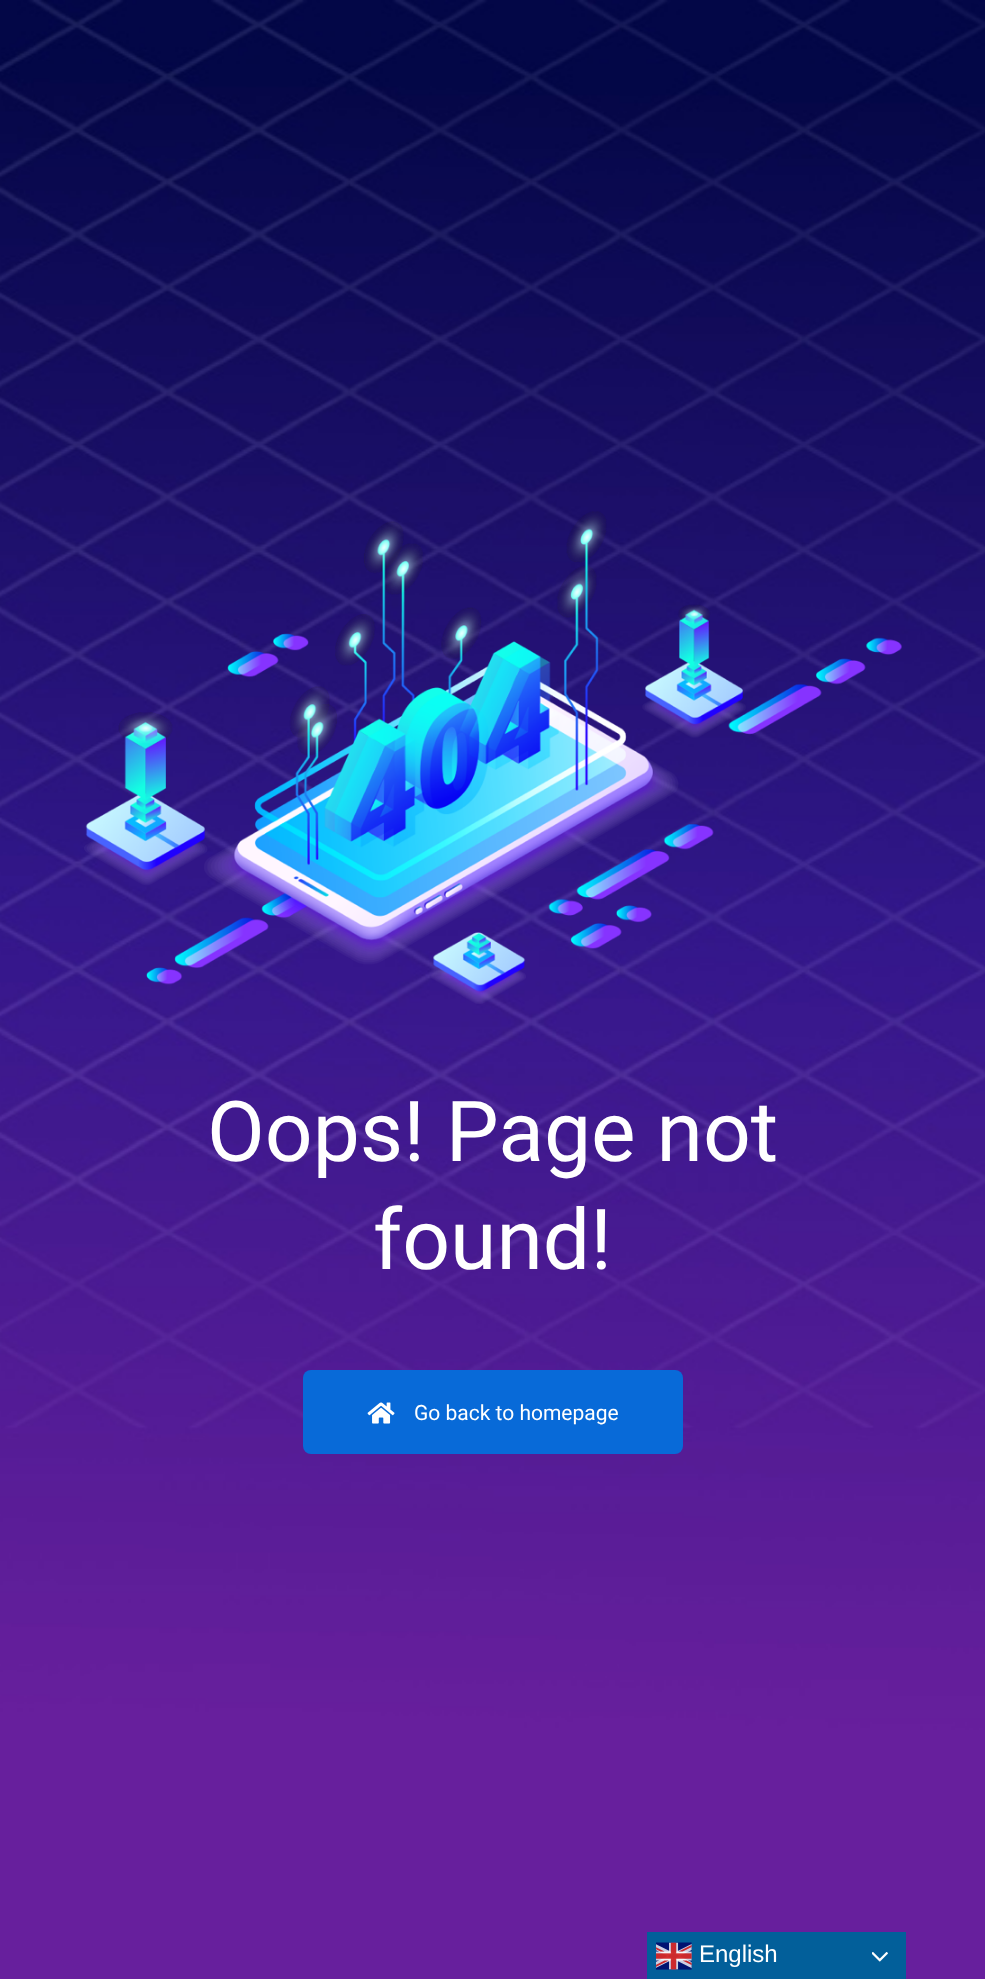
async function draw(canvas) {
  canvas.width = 985
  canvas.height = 1979
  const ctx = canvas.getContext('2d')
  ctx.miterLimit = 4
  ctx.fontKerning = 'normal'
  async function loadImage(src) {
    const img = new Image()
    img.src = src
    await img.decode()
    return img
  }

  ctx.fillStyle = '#fff'
  ctx.fillRect(0, 0, 985, 1979)
  ctx.drawImage(await loadImage('image0.png'), 0, 0, 985, 1979)
  ctx.drawImage(await loadImage('image1.png'), 84, 511, 818, 493)
  ctx.font = '84px Roboto'
  ctx.fillText('Oops! Page not', 207, 1161)
  ctx.fillText('found!', 373, 1269)
  ctx.fillStyle = '#086ad8'
  ctx.beginPath()
  ctx.roundRect(303, 1370, 380, 84, 8)
  ctx.fill()
  ctx.drawImage(await loadImage('image2.png'), 367, 1402, 28, 22)
  ctx.font = '21px Roboto'
  ctx.fillStyle = '#fff'
  ctx.fillText('Go back to homepage', 414, 1420)
  ctx.fillStyle = '#025f9a'
  ctx.fillRect(647, 1932, 259, 47)
  ctx.drawImage(await loadImage('image3.png'), 656, 1942, 36, 28)
  ctx.font = '24px Liberation Sans'
  ctx.fillStyle = '#fff'
  ctx.fillText('English', 699, 1962)
  ctx.drawImage(await loadImage('image4.png'), 872, 1952, 16, 10)
}

draw(document.querySelector('canvas'))
